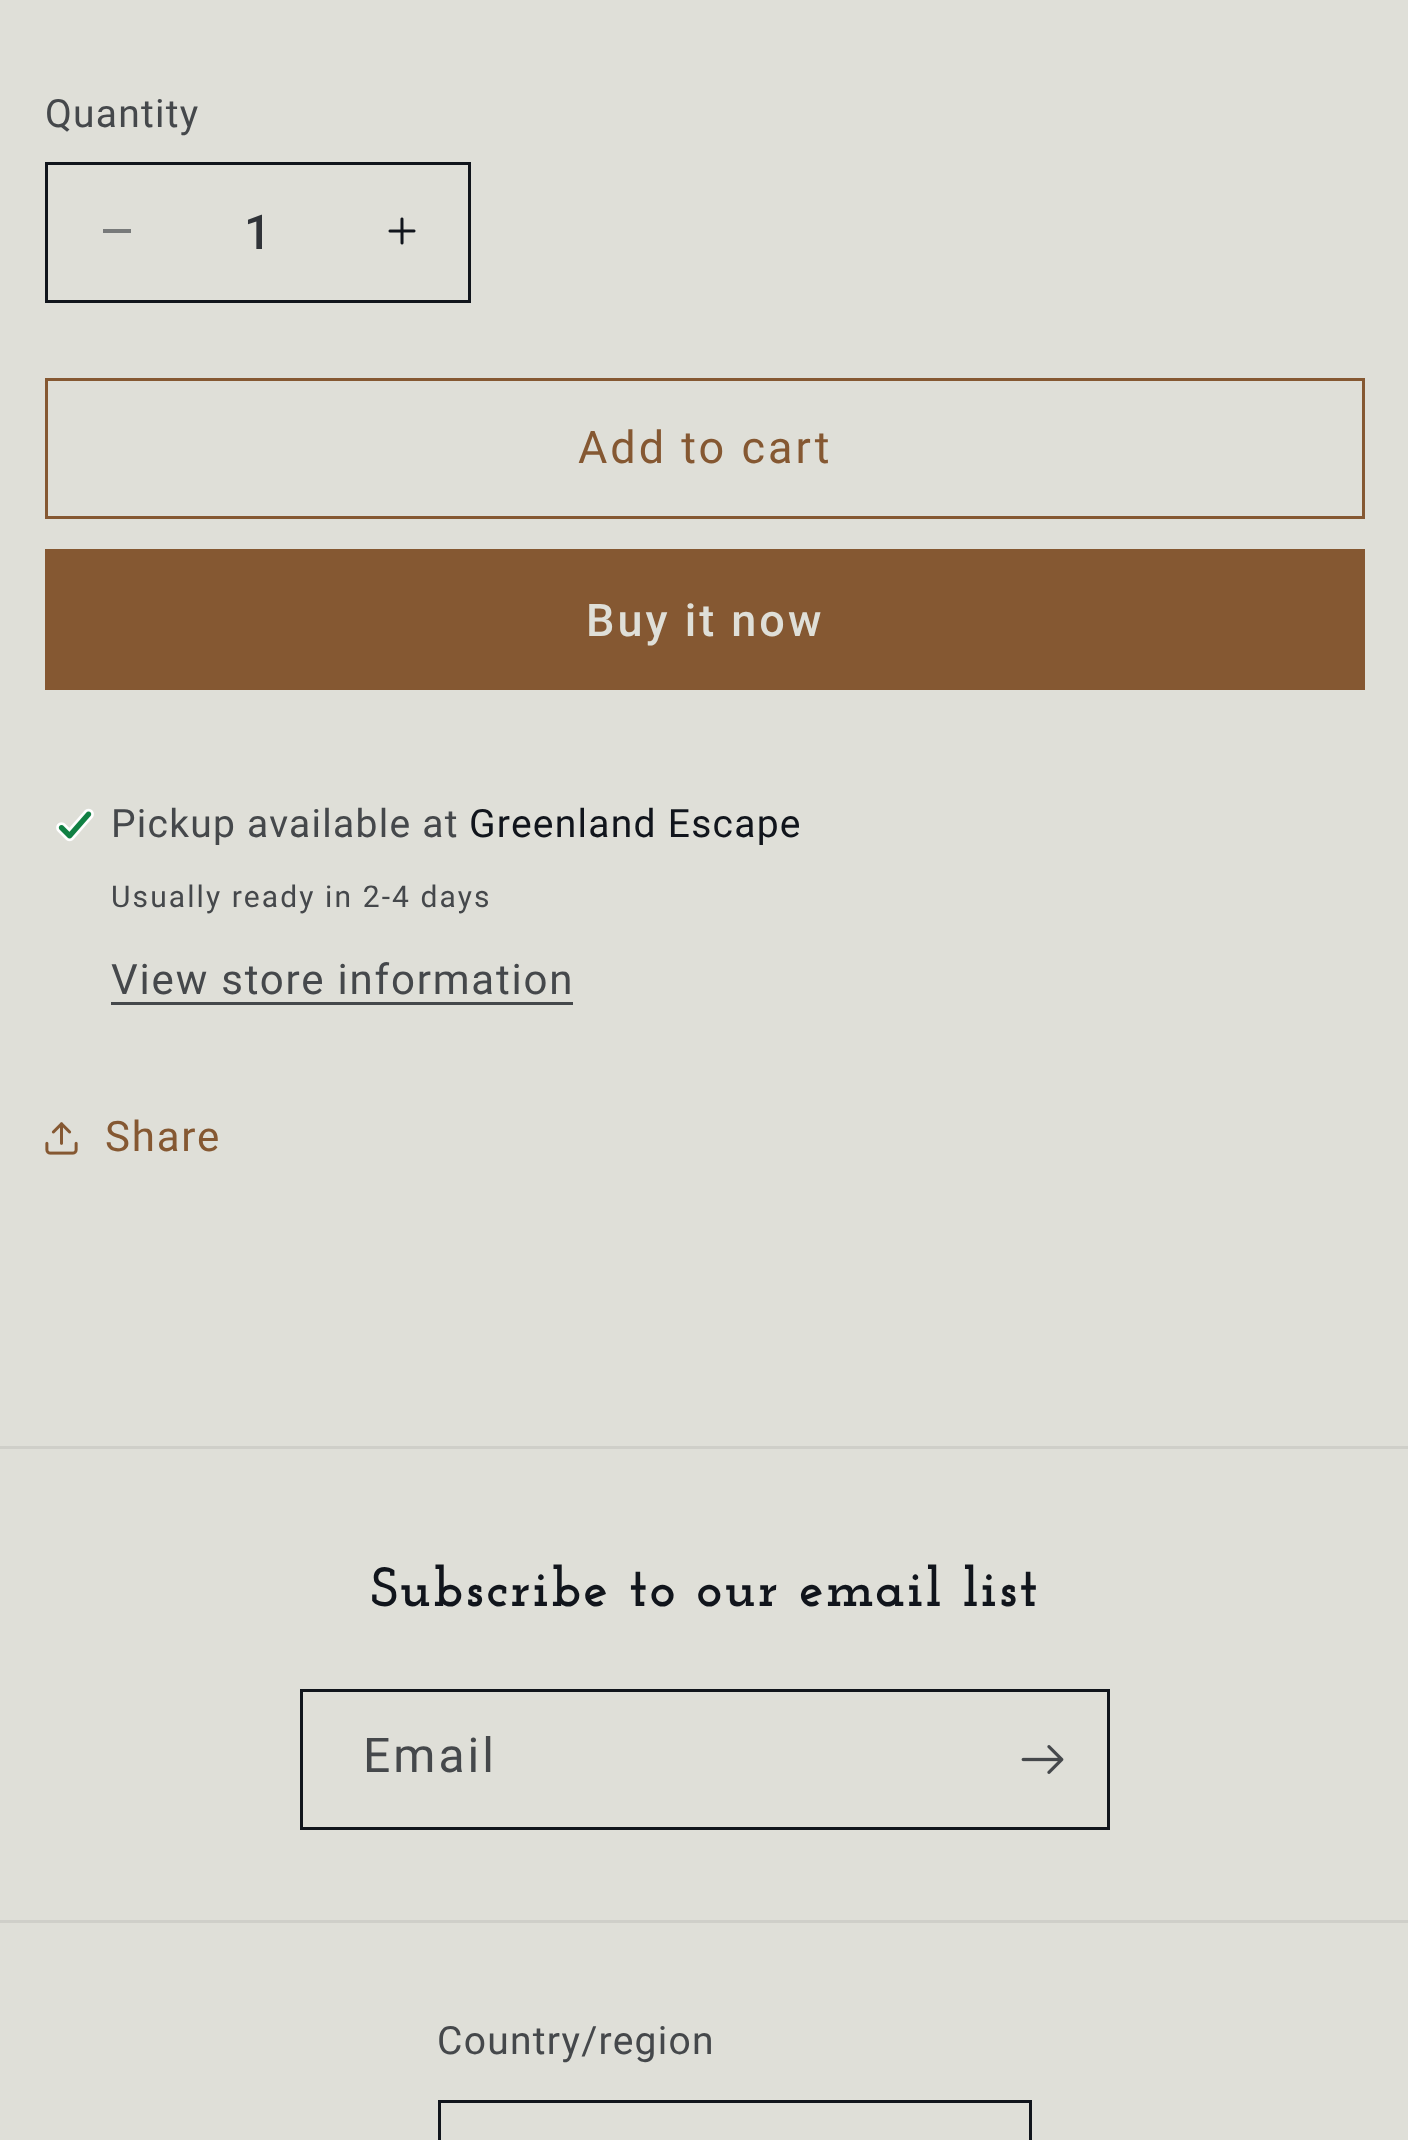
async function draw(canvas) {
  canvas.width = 1408
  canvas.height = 2140
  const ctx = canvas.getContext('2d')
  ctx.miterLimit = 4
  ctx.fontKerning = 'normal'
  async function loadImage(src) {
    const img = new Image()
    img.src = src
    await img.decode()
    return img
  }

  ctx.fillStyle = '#dfdfd8'
  ctx.fillRect(0, 0, 1408, 2140)
  ctx.letterSpacing = '1.25px'
  ctx.font = '39px Roboto'
  ctx.fillStyle = '#45484b'
  ctx.fillText('Quantity', 45, 127)
  ctx.fillStyle = '#787a7a'
  ctx.fillRect(103, 229, 28, 4)
  ctx.drawImage(await loadImage('image0.png'), 388, 217, 28, 28)
  ctx.strokeStyle = '#11151c'
  ctx.lineWidth = 3
  ctx.strokeRect(46.5, 163.5, 423, 138)
  ctx.letterSpacing = '0px'
  ctx.font = '500 48px Roboto'
  ctx.fillStyle = '#303338'
  ctx.fillText('1', 244, 249)
  ctx.strokeStyle = '#855832'
  ctx.strokeRect(46.5, 379.5, 1317, 138)
  ctx.letterSpacing = '3px'
  ctx.font = '45px Roboto'
  ctx.fillStyle = '#855832'
  ctx.fillText('Add to cart', 578, 463)
  ctx.fillRect(45, 549, 1320, 141)
  ctx.font = '500 45px Roboto'
  ctx.fillStyle = '#dfdfd8'
  ctx.fillText('Buy it now', 586, 636)
  ctx.drawImage(await loadImage('image1.png'), 56, 808, 38, 34)
  ctx.letterSpacing = '1.25px'
  ctx.font = '39px Roboto'
  ctx.fillStyle = '#45484b'
  ctx.fillText('Pickup available at', 111, 837)
  ctx.fillStyle = '#11151c'
  ctx.fillText('Greenland Escape', 469, 837)
  ctx.letterSpacing = '2.1px'
  ctx.font = '30px Roboto'
  ctx.fillStyle = '#45484b'
  ctx.fillText('Usually ready in 2-4 days', 111, 907)
  ctx.letterSpacing = '1.8px'
  ctx.font = '42px Roboto'
  ctx.fillText('View store information', 111, 994)
  ctx.fillRect(111, 1002, 462, 3)
  ctx.drawImage(await loadImage('image2.png'), 45, 1122, 33, 33)
  ctx.fillStyle = '#855832'
  ctx.fillText('Share', 105, 1151)
  ctx.fillStyle = '#cfcfc9'
  ctx.fillRect(0, 1446, 1408, 3)
  ctx.letterSpacing = '2.1px'
  ctx.font = 'bold 55.25px Josefin Slab'
  ctx.fillStyle = '#11151c'
  ctx.fillText('Subscribe to our email list', 371, 1606)
  ctx.strokeStyle = '#11151c'
  ctx.strokeRect(301.5, 1690.5, 807, 138)
  ctx.letterSpacing = '3px'
  ctx.font = '48px Roboto'
  ctx.fillStyle = '#45484b'
  ctx.fillText('Email', 363, 1772)
  ctx.drawImage(await loadImage('image3.png'), 1021, 1745, 43, 29)
  ctx.fillStyle = '#cfcfc9'
  ctx.fillRect(0, 1920, 1408, 3)
  ctx.letterSpacing = '1.25px'
  ctx.font = '39px Roboto'
  ctx.fillStyle = '#45484b'
  ctx.fillText('Country/region', 437, 2054)
  ctx.strokeRect(439.5, 2101.5, 591, 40)
}

draw(document.querySelector('canvas'))
